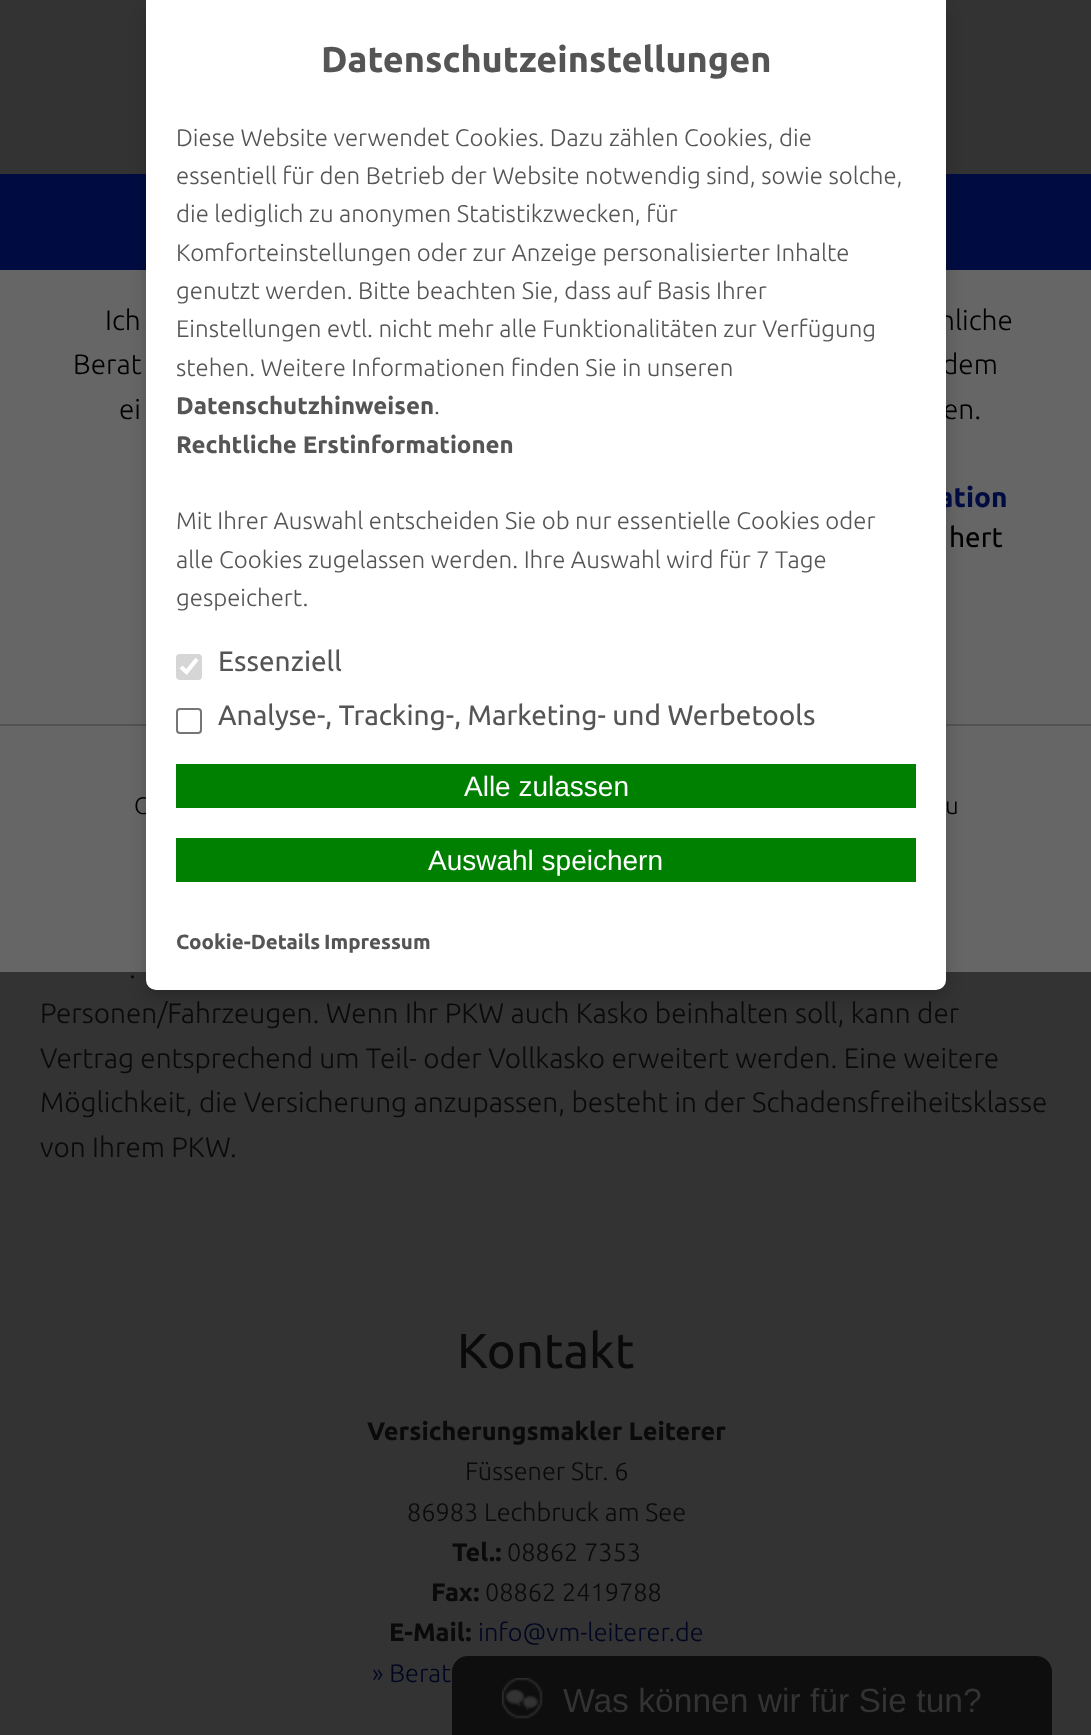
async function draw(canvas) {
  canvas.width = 1091
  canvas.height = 1735
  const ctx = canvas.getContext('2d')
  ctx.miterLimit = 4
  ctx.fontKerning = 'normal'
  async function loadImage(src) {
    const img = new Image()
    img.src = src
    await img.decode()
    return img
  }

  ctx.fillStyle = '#333'
  ctx.fillRect(0, 0, 1091, 1735)
  ctx.fillStyle = '#666'
  ctx.fillRect(0, 270, 1091, 702)
  ctx.fillStyle = '#000c41'
  ctx.fillRect(0, 174, 1091, 96)
  ctx.fillStyle = '#525252'
  ctx.fillRect(0, 724, 1091, 2)
  ctx.fillStyle = '#00000033'
  ctx.filter = 'blur(8px)'
  ctx.beginPath()
  ctx.roundRect(146, 8, 800, 990, 10)
  ctx.fill()
  ctx.filter = 'none'
  ctx.font = '300 28px Ubuntu'
  ctx.fillStyle = '#000'
  ctx.fillText('nliche', 939, 330)
  ctx.fillText('dem', 942, 374)
  ctx.fillText('en.', 943, 419)
  ctx.font = 'bold 28px Ubuntu'
  ctx.fillStyle = '#000c41'
  ctx.fillText('ation', 938, 507)
  ctx.font = '300 24px Ubuntu'
  ctx.fillStyle = '#000'
  ctx.fillText('G', 134, 814)
  ctx.fillStyle = '#fff'
  ctx.beginPath()
  ctx.roundRect(146, 0, 800, 990, [0, 0, 10, 10])
  ctx.fill()
  ctx.font = 'bold 36px Ubuntu'
  ctx.fillStyle = '#555'
  ctx.fillText('Datenschutzeinstellungen', 321, 72)
  ctx.font = '300 24px Ubuntu'
  ctx.fillText('Diese Website verwendet Cookies. Dazu zählen Cookies, die', 176, 146)
  ctx.fillText('essentiell für den Betrieb der Website notwendig sind, sowie solche,', 176, 184)
  ctx.fillText('die lediglich zu anonymen Statistikzwecken, für', 176, 222)
  ctx.fillText('Komforteinstellungen oder zur Anzeige personalisierter Inhalte', 176, 261)
  ctx.fillText('genutzt werden. Bitte beachten Sie, dass auf Basis Ihrer', 176, 299)
  ctx.fillText('Einstellungen evtl. nicht mehr alle Funktionalitäten zur Verfügung', 176, 337)
  ctx.fillText('stehen. Weitere Informationen finden Sie in unseren', 176, 376)
  ctx.font = 'bold 24px Ubuntu'
  ctx.fillText('Datenschutzhinweisen', 176, 414)
  ctx.font = '300 24px Ubuntu'
  ctx.fillText('.', 434, 414)
  ctx.font = 'bold 24px Ubuntu'
  ctx.fillText('Rechtliche Erstinformationen', 176, 453)
  ctx.font = '300 24px Ubuntu'
  ctx.fillText('Mit Ihrer Auswahl entscheiden Sie ob nur essentielle Cookies oder', 176, 529)
  ctx.fillText('alle Cookies zugelassen werden. Ihre Auswahl wird für 7 Tage', 176, 568)
  ctx.fillText('gespeichert.', 176, 606)
  ctx.fillStyle = '#d6d6d6'
  ctx.beginPath()
  ctx.roundRect(176, 654, 26, 26, 4)
  ctx.fill()
  ctx.beginPath()
  ctx.moveTo(181, 667)
  ctx.lineTo(186.5, 672)
  ctx.lineTo(197, 659)
  ctx.strokeStyle = '#fff'
  ctx.lineWidth = 4.2
  ctx.stroke()
  ctx.font = '28px Ubuntu'
  ctx.fillStyle = '#555'
  ctx.fillText('Essenziell', 218, 671)
  ctx.beginPath()
  ctx.roundRect(177, 709, 24, 24, 3)
  ctx.strokeStyle = '#767676'
  ctx.lineWidth = 2
  ctx.stroke()
  ctx.fillText('Analyse-, Tracking-, Marketing- und Werbetools', 218, 725)
  ctx.fillStyle = '#008000'
  ctx.fillRect(176, 764, 740, 44)
  ctx.font = '28px Liberation Sans'
  ctx.fillStyle = '#fff'
  ctx.fillText('Alle zulassen', 464, 796)
  ctx.fillStyle = '#008000'
  ctx.fillRect(176, 838, 740, 44)
  ctx.fillStyle = '#fff'
  ctx.fillText('Auswahl speichern', 428, 870)
  ctx.font = 'bold 20.5px Ubuntu'
  ctx.fillStyle = '#555'
  ctx.fillText('Cookie-Details', 176, 949)
  ctx.fillText('Impressum', 324, 949)
  ctx.font = '300 28px Ubuntu'
  ctx.fillStyle = '#000'
  ctx.fillText('Ich', 105, 330)
  ctx.fillText('Berat', 73, 374)
  ctx.fillText('ei', 119, 419)
  ctx.font = '28px Ubuntu'
  ctx.fillText('hert', 949, 547)
  ctx.font = '300 24px Ubuntu'
  ctx.fillText('u', 945, 814)
  ctx.font = '300 28px Ubuntu'
  ctx.fillStyle = '#0a0a0a'
  ctx.fillText('.', 129, 978)
  ctx.fillText('Personen/Fahrzeugen. Wenn Ihr PKW auch Kasko beinhalten soll, kann der', 40, 1023)
  ctx.fillText('Vertrag entsprechend um Teil- oder Vollkasko erweitert werden. Eine weitere', 40, 1068)
  ctx.fillText('Möglichkeit, die Versicherung anzupassen, besteht in der Schadensfreiheitsklasse', 40, 1112)
  ctx.fillText('von Ihrem PKW.', 40, 1157)
  ctx.font = '49px Ubuntu'
  ctx.fillText('Kontakt', 457, 1368)
  ctx.font = 'bold 25.25px Ubuntu'
  ctx.fillText('Versicherungsmakler Leiterer', 367, 1440)
  ctx.font = '300 25.25px Ubuntu'
  ctx.fillText('Füssener Str. 6', 465, 1480)
  ctx.fillText('86983 Lechbruck am See', 407, 1521)
  ctx.font = 'bold 25.25px Ubuntu'
  ctx.fillText('Tel.:', 452, 1561)
  ctx.font = '300 25.25px Ubuntu'
  ctx.fillText('08862 7353', 507, 1561)
  ctx.font = 'bold 25.25px Ubuntu'
  ctx.fillText('Fax:', 431, 1601)
  ctx.font = '300 25.25px Ubuntu'
  ctx.fillText('08862 2419788', 485, 1601)
  ctx.font = 'bold 25.25px Ubuntu'
  ctx.fillText('E-Mail:', 389, 1641)
  ctx.font = '300 25.25px Ubuntu'
  ctx.fillStyle = '#000621'
  ctx.fillText('info@vm-leiterer.de', 478, 1641)
  ctx.fillText('» Berat', 372, 1682)
  ctx.fillStyle = '#0e0e0e'
  ctx.beginPath()
  ctx.moveTo(468, 1656)
  ctx.lineTo(1036, 1656)
  ctx.bezierCurveTo(1045, 1656, 1052, 1663, 1052, 1672)
  ctx.lineTo(1052, 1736)
  ctx.lineTo(452, 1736)
  ctx.lineTo(452, 1672)
  ctx.bezierCurveTo(452, 1663, 459, 1656, 468, 1656)
  ctx.closePath()
  ctx.fill()
  ctx.drawImage(await loadImage('image0.png'), 502, 1678, 41, 41)
  ctx.font = '33.6px Liberation Sans'
  ctx.fillStyle = '#333'
  ctx.fillText('Was können wir für Sie tun?', 563, 1712)
}

draw(document.querySelector('canvas'))
